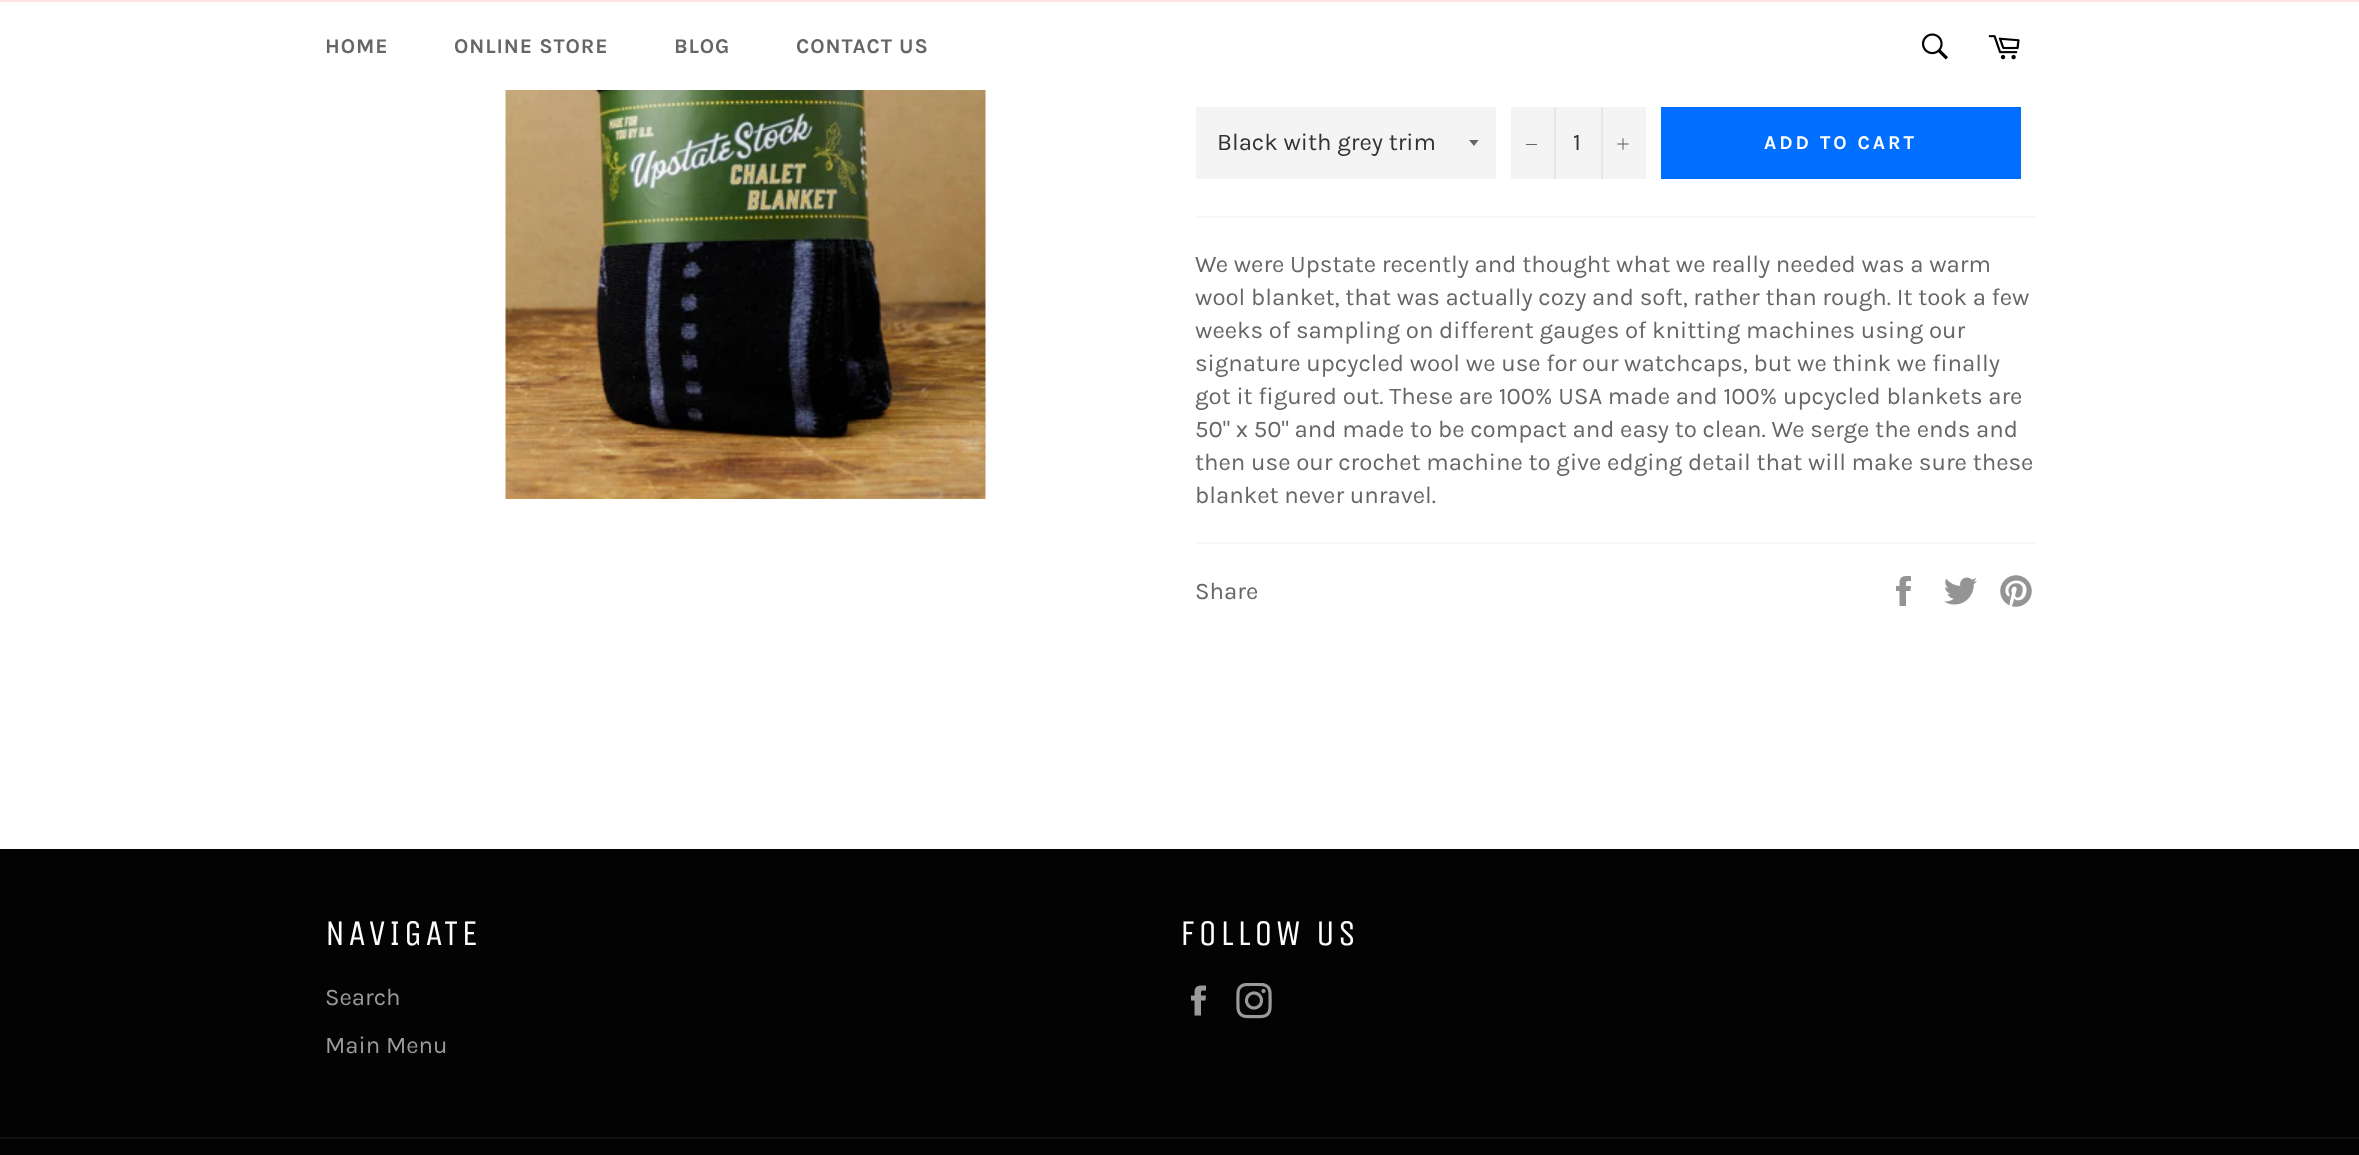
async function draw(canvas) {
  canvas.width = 2359
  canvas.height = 1155
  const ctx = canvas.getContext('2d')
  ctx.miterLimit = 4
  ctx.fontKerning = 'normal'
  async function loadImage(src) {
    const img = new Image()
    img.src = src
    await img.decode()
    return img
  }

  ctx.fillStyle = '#fff'
  ctx.fillRect(0, 0, 2359, 1155)
  ctx.fillStyle = '#ffe3e3'
  ctx.fillRect(0, 0, 2359, 2)
  ctx.letterSpacing = '0.9px'
  ctx.font = 'bold 21px Karla'
  ctx.fillStyle = '#666'
  ctx.fillText('HOME', 325, 53)
  ctx.fillText('ONLINE STORE', 454, 53)
  ctx.fillText('BLOG', 674, 53)
  ctx.fillText('CONTACT US', 796, 53)
  ctx.drawImage(await loadImage('image0.png'), 1921, 33, 27, 27)
  ctx.drawImage(await loadImage('image1.png'), 1988, 35, 32, 25)
  ctx.drawImage(await loadImage('image2.png'), 505, 90, 481, 409)
  ctx.fillStyle = '#f4f4f4'
  ctx.fillRect(1196, 107, 300, 72)
  ctx.save()
  ctx.beginPath()
  ctx.rect(1469, 140, 12, 7)
  ctx.clip()
  ctx.fillStyle = '#666'
  ctx.beginPath()
  ctx.moveTo(1468.5, 139.5)
  ctx.lineTo(1474, 146)
  ctx.lineTo(1479, 139.5)
  ctx.closePath()
  ctx.fill()
  ctx.restore()
  ctx.letterSpacing = '0px'
  ctx.font = '24px Karla'
  ctx.fillStyle = '#333'
  ctx.fillText('Black with grey trim', 1217, 150)
  ctx.fillStyle = '#f4f4f4'
  ctx.fillRect(1511, 107, 135, 72)
  ctx.fillStyle = '#e7e7e7'
  ctx.fillRect(1554, 107, 2, 72)
  ctx.fillStyle = '#666'
  ctx.fillRect(1526, 144, 11, 1)
  ctx.fillStyle = '#333'
  ctx.fillText('1', 1573, 150)
  ctx.fillStyle = '#e7e7e7'
  ctx.fillRect(1601, 107, 2, 72)
  ctx.drawImage(await loadImage('image3.png'), 1617, 138, 12, 12)
  ctx.fillStyle = '#006eff'
  ctx.fillRect(1661, 107, 360, 72)
  ctx.letterSpacing = '3px'
  ctx.font = 'bold 19.5px Karla'
  ctx.fillStyle = '#fff'
  ctx.fillText('ADD TO CART', 1764, 149)
  ctx.fillStyle = '#f7f7f7'
  ctx.fillRect(1196, 216, 840, 2)
  ctx.letterSpacing = '0px'
  ctx.font = '24px Karla'
  ctx.fillStyle = '#666'
  ctx.fillText('We were Upstate recently and thought what we really needed was a warm', 1195, 272)
  ctx.fillText('wool blanket, that was actually cozy and soft, rather than rough. It took a few', 1195, 305)
  ctx.fillText('weeks of sampling on different gauges of knitting machines using our', 1195, 338)
  ctx.fillText('signature upcycled wool we use for our watchcaps, but we think we finally', 1195, 371)
  ctx.fillText('got it figured out. These are 100% USA made and 100% upcycled blankets are', 1195, 404)
  ctx.fillText('50" x 50" and made to be compact and easy to clean. We serge the ends and', 1195, 437)
  ctx.fillText('then use our crochet machine to give edging detail that will make sure these', 1195, 470)
  ctx.fillText('blanket never unravel.', 1195, 503)
  ctx.fillStyle = '#f7f7f7'
  ctx.fillRect(1196, 542, 840, 2)
  ctx.fillStyle = '#666'
  ctx.fillText('Share', 1195, 599)
  ctx.drawImage(await loadImage('image4.png'), 1896, 576, 15, 30)
  ctx.drawImage(await loadImage('image5.png'), 1944, 577, 33, 28)
  ctx.drawImage(await loadImage('image6.png'), 2000, 575, 32, 32)
  ctx.fillStyle = '#030303'
  ctx.fillRect(0, 849, 2359, 306)
  ctx.letterSpacing = '3.5px'
  ctx.font = '36px Unica One'
  ctx.fillStyle = '#fff'
  ctx.fillText('NAVIGATE', 325, 945)
  ctx.letterSpacing = '0px'
  ctx.font = '24px Karla'
  ctx.fillStyle = '#9a9a9a'
  ctx.fillText('Search', 325, 1005)
  ctx.fillText('Main Menu', 325, 1053)
  ctx.letterSpacing = '3.5px'
  ctx.font = '36px Unica One'
  ctx.fillStyle = '#fff'
  ctx.fillText('FOLLOW US', 1180, 945)
  ctx.drawImage(await loadImage('image7.png'), 1191, 985, 15, 31)
  ctx.drawImage(await loadImage('image8.png'), 1236, 983, 36, 36)
  ctx.fillStyle = '#101010'
  ctx.fillRect(0, 1137, 2359, 2)
}

draw(document.querySelector('canvas'))
